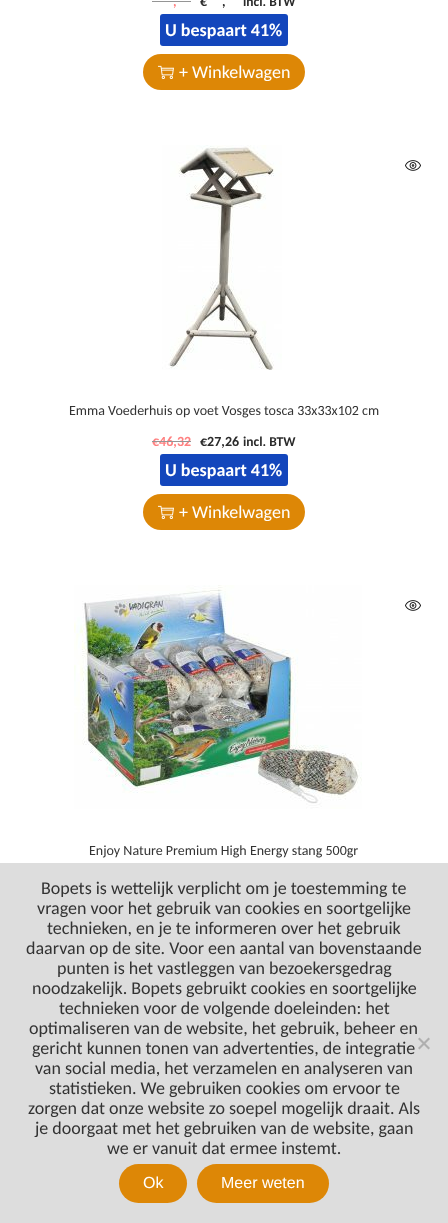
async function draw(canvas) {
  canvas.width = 448
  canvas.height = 1223
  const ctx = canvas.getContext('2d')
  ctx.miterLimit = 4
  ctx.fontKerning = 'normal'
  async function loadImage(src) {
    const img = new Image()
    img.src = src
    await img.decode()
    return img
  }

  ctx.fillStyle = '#fff'
  ctx.fillRect(0, 0, 448, 1223)
  ctx.font = 'bold 14px Carlito'
  ctx.fillStyle = '#ff8080'
  ctx.fillText(',', 173, 6)
  ctx.fillStyle = '#959595'
  ctx.fillRect(152, 1, 39, 1)
  ctx.fillStyle = '#2b2b2b'
  ctx.fillText('€', 200, 6)
  ctx.fillText(',', 222, 6)
  ctx.font = 'bold 13.5px Carlito'
  ctx.fillText('incl. BTW', 243, 6)
  ctx.fillStyle = '#1346bc'
  ctx.beginPath()
  ctx.roundRect(160, 14, 128, 32, 3)
  ctx.fill()
  ctx.font = 'bold 18px Carlito'
  ctx.fillStyle = '#fff'
  ctx.fillText('U bespaart 41%', 165, 36)
  ctx.fillStyle = '#dd8706'
  ctx.beginPath()
  ctx.roundRect(143, 54, 162, 36, 18)
  ctx.fill()
  ctx.drawImage(await loadImage('image0.png'), 158, 65, 16, 14)
  ctx.font = '18px Carlito'
  ctx.fillStyle = '#fff'
  ctx.fillText('+ Winkelwagen', 179, 78)
  ctx.drawImage(await loadImage('image1.png'), 162, 145, 120, 225)
  ctx.drawImage(await loadImage('image2.png'), 405, 160, 16, 11)
  ctx.font = '14px Carlito'
  ctx.fillStyle = '#333'
  ctx.fillText('Emma Voederhuis op voet Vosges tosca 33x33x102 cm', 69, 415)
  ctx.font = 'bold 14px Carlito'
  ctx.fillStyle = '#ff8080'
  ctx.fillText('€46,32', 152, 446)
  ctx.fillStyle = '#959595'
  ctx.fillRect(152, 441, 39, 1)
  ctx.fillStyle = '#2b2b2b'
  ctx.fillText('€27,26', 200, 446)
  ctx.font = 'bold 13.5px Carlito'
  ctx.fillText('incl. BTW', 243, 446)
  ctx.fillStyle = '#1346bc'
  ctx.beginPath()
  ctx.roundRect(160, 454, 128, 32, 3)
  ctx.fill()
  ctx.font = 'bold 18px Carlito'
  ctx.fillStyle = '#fff'
  ctx.fillText('U bespaart 41%', 165, 476)
  ctx.fillStyle = '#dd8706'
  ctx.beginPath()
  ctx.roundRect(143, 494, 162, 36, 18)
  ctx.fill()
  ctx.drawImage(await loadImage('image0.png'), 158, 505, 16, 14)
  ctx.font = '18px Carlito'
  ctx.fillStyle = '#fff'
  ctx.fillText('+ Winkelwagen', 179, 518)
  ctx.drawImage(await loadImage('image3.png'), 74, 585, 288, 224)
  ctx.drawImage(await loadImage('image2.png'), 405, 600, 16, 11)
  ctx.font = '14px Carlito'
  ctx.fillStyle = '#333'
  ctx.fillText('Enjoy Nature Premium High Energy stang 500gr', 89, 855)
  ctx.fillStyle = '#ddd'
  ctx.fillRect(0, 863, 448, 360)
  ctx.font = '18px Carlito'
  ctx.fillStyle = '#333'
  ctx.fillText('Bopets is wettelijk verplicht om je toestemming te', 41, 894)
  ctx.fillText('vragen voor het gebruik van cookies en soortgelijke', 37, 914)
  ctx.fillText('technieken, en je te informeren over het gebruik', 47, 934)
  ctx.fillText('daarvan op de site. Voor een aantal van bovenstaande', 26, 954)
  ctx.fillText('punten is het vastleggen van bezoekersgedrag', 57, 974)
  ctx.fillText('noodzakelijk. Bopets gebruikt cookies en soortgelijke', 32, 994)
  ctx.fillText('technieken voor de volgende doeleinden: het', 59, 1014)
  ctx.fillText('optimaliseren van de website, het gebruik, beheer en', 29, 1034)
  ctx.fillText('gericht kunnen tonen van advertenties, de integratie', 32, 1054)
  ctx.fillText('van social media, het verzamelen en analyseren van', 35, 1074)
  ctx.fillText('statistieken. We gebruiken cookies om ervoor te', 49, 1094)
  ctx.fillText('zorgen dat onze website zo soepel mogelijk draait. Als', 28, 1114)
  ctx.fillText('je doorgaat met het gebruiken van de website, gaan', 35, 1134)
  ctx.fillText('we er vanuit dat ermee instemt.', 107, 1154)
  ctx.fillStyle = '#afafaf'
  ctx.beginPath()
  ctx.moveTo(428.5, 1037.5)
  ctx.lineTo(430, 1039)
  ctx.lineTo(419.5, 1049.5)
  ctx.lineTo(418, 1048)
  ctx.closePath()
  ctx.fill()
  ctx.beginPath()
  ctx.moveTo(418, 1039)
  ctx.lineTo(419.5, 1037.5)
  ctx.lineTo(430, 1048)
  ctx.lineTo(428.5, 1049.5)
  ctx.closePath()
  ctx.fill()
  ctx.fillStyle = '#dd8706'
  ctx.beginPath()
  ctx.roundRect(119, 1164, 68, 39, 19.5)
  ctx.fill()
  ctx.font = '16px Liberation Sans'
  ctx.fillStyle = '#fff'
  ctx.fillText('Ok', 143, 1188)
  ctx.fillStyle = '#dd8706'
  ctx.beginPath()
  ctx.roundRect(197, 1164, 132, 39, 19.5)
  ctx.fill()
  ctx.fillStyle = '#fff'
  ctx.fillText('Meer weten', 221, 1188)
}

draw(document.querySelector('canvas'))
